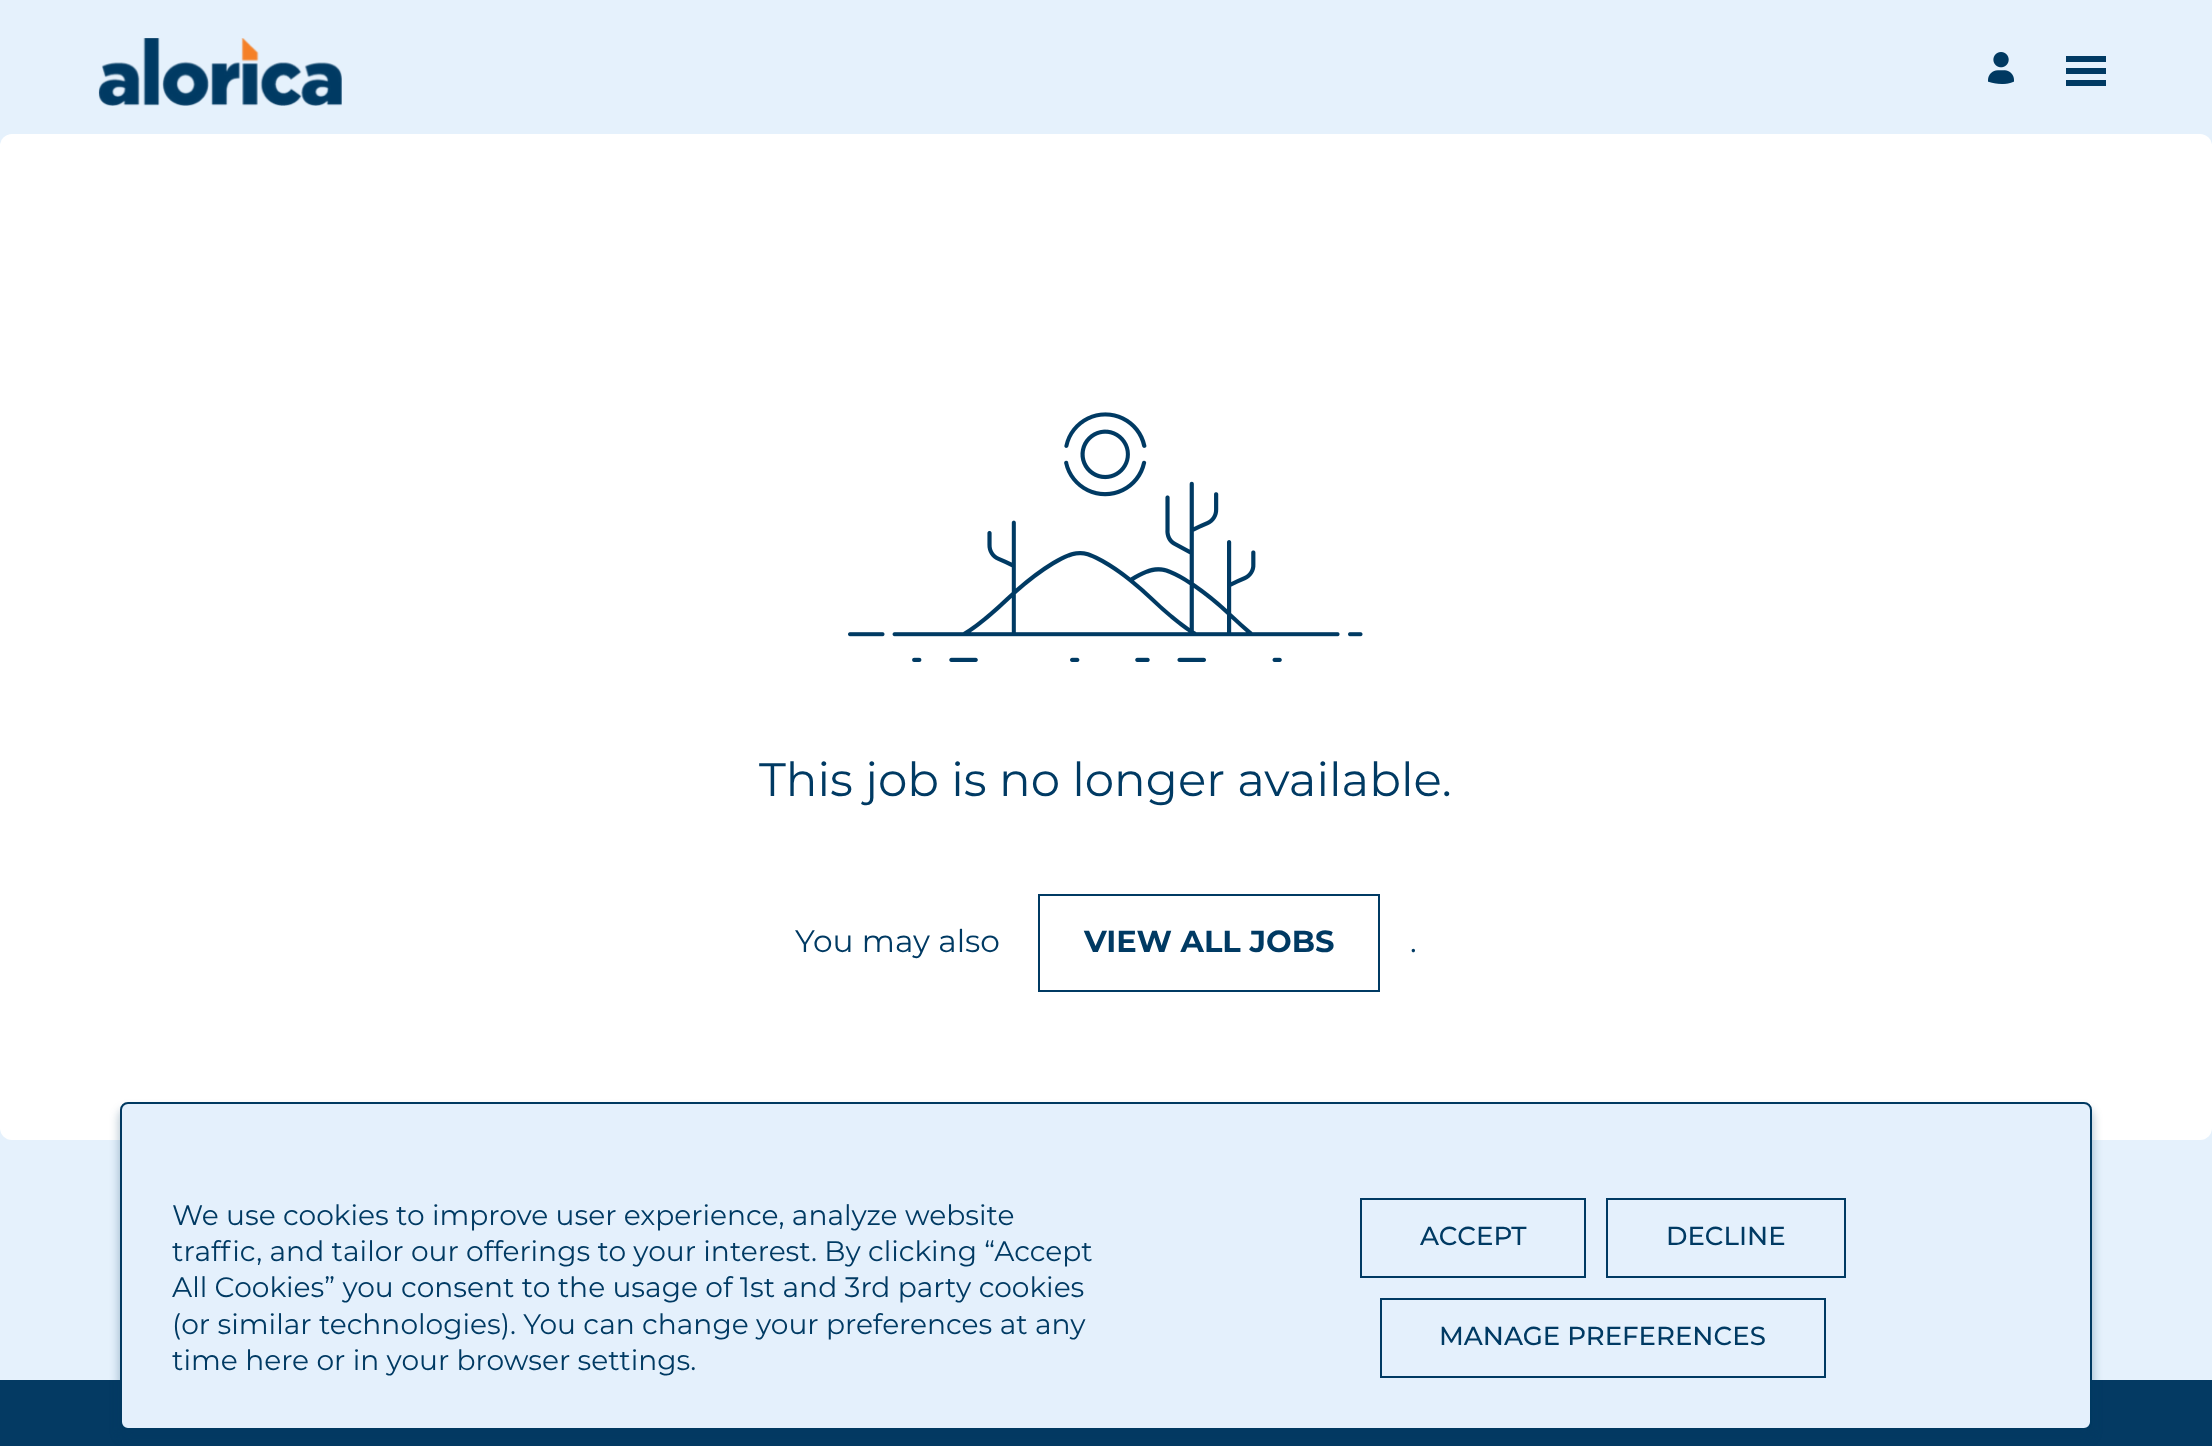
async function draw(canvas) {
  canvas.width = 2212
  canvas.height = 1446
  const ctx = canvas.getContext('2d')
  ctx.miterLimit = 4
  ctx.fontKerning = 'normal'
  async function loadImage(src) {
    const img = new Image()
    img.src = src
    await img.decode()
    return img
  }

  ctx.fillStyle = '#e5f1fc'
  ctx.fillRect(0, 0, 2212, 1446)
  ctx.drawImage(await loadImage('image0.png'), 98, 38, 244, 68)
  ctx.drawImage(await loadImage('image1.png'), 1988, 52, 26, 32)
  ctx.fillStyle = '#003a63'
  ctx.fillRect(2066, 56, 40, 6)
  ctx.fillRect(2066, 68, 40, 6)
  ctx.fillRect(2066, 80, 40, 6)
  ctx.fillStyle = '#fff'
  ctx.beginPath()
  ctx.roundRect(0, 134, 2212, 1006, 12)
  ctx.fill()
  ctx.drawImage(await loadImage('image2.png'), 848, 412, 515, 250)
  ctx.font = '46.75px Montserrat'
  ctx.fillStyle = '#003a63'
  ctx.fillText('This job is no longer available.', 759, 796)
  ctx.font = '31.25px Montserrat'
  ctx.fillText('You may also', 795, 952)
  ctx.strokeStyle = '#003a63'
  ctx.lineWidth = 2
  ctx.strokeRect(1039, 895, 340, 96)
  ctx.font = 'bold 30.5px Montserrat'
  ctx.fillText('VIEW ALL JOBS', 1084, 952)
  ctx.font = '31.25px Montserrat'
  ctx.fillText('.', 1410, 952)
  ctx.fillStyle = '#043a63'
  ctx.fillRect(0, 1380, 2212, 66)
  ctx.fillStyle = '#00396140'
  ctx.filter = 'blur(4px)'
  ctx.beginPath()
  ctx.roundRect(118, 1108, 1976, 332, 10)
  ctx.fill()
  ctx.filter = 'none'
  ctx.fillStyle = '#e4f0fc'
  ctx.beginPath()
  ctx.roundRect(121, 1103, 1970, 326, 7)
  ctx.fill()
  ctx.strokeStyle = '#003961'
  ctx.stroke()
  ctx.font = '28.1px Montserrat'
  ctx.fillStyle = '#003a63'
  ctx.fillText('We use cookies to improve user experience, analyze website', 172, 1225)
  ctx.fillText('traffic, and tailor our offerings to your interest. By clicking “Accept', 172, 1261)
  ctx.fillText('All Cookies” you consent to the usage of 1st and 3rd party cookies', 172, 1297)
  ctx.fillText('(or similar technologies). You can change your preferences at any', 172, 1334)
  ctx.fillText('time here or in your browser settings.', 172, 1370)
  ctx.strokeStyle = '#003a63'
  ctx.strokeRect(1361, 1199, 224, 78)
  ctx.font = '500 26px Montserrat'
  ctx.fillText('ACCEPT', 1420, 1245)
  ctx.strokeRect(1607, 1199, 238, 78)
  ctx.fillText('DECLINE', 1666, 1245)
  ctx.strokeRect(1381, 1299, 444, 78)
  ctx.fillText('MANAGE PREFERENCES', 1439, 1345)
}

draw(document.querySelector('canvas'))
